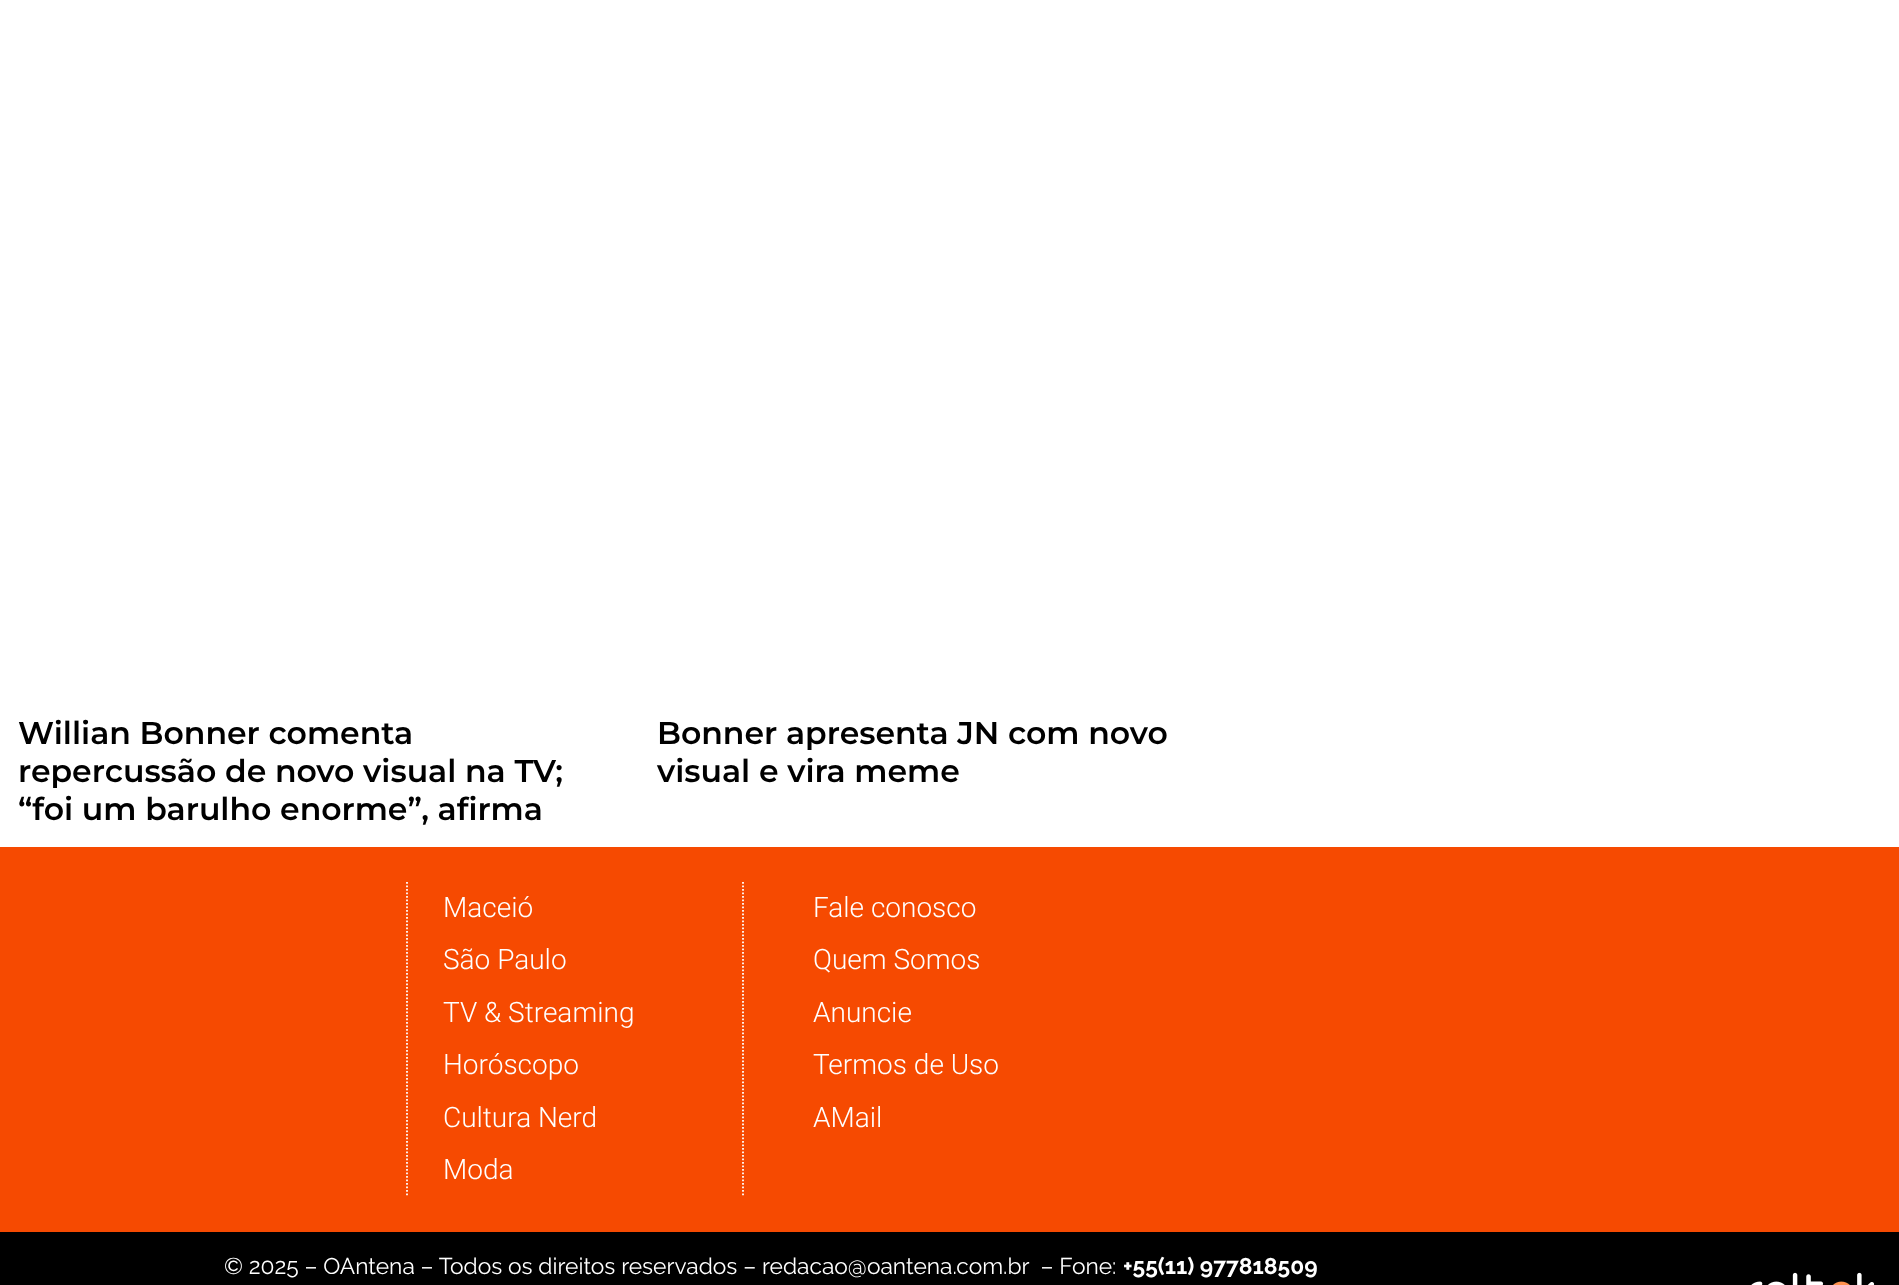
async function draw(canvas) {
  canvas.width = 1899
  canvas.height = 1285
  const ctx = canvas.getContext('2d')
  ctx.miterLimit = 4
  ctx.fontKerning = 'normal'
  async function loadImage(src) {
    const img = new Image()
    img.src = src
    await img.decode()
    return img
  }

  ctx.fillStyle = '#fff'
  ctx.fillRect(0, 0, 1899, 1285)
  ctx.font = '600 31.5px Montserrat'
  ctx.fillStyle = '#000'
  ctx.fillText('Willian Bonner comenta', 18, 744)
  ctx.fillText('repercussão de novo visual na TV;', 18, 782)
  ctx.fillText('“foi um barulho enorme”, afirma', 18, 820)
  ctx.fillText('Bonner apresenta JN com novo', 657, 744)
  ctx.fillText('visual e vira meme', 657, 782)
  ctx.fillStyle = '#f64a01'
  ctx.fillRect(0, 847, 1899, 385)
  ctx.beginPath()
  ctx.moveTo(743, 882)
  ctx.lineTo(743, 1197)
  ctx.strokeStyle = '#fff'
  ctx.lineWidth = 1.8
  ctx.setLineDash([1.75, 1.75])
  ctx.stroke()
  ctx.beginPath()
  ctx.moveTo(407, 882)
  ctx.lineTo(407, 1197)
  ctx.stroke()
  ctx.font = '300 28px Roboto'
  ctx.fillStyle = '#fff'
  ctx.fillText('Maceió', 443, 917)
  ctx.fillText('São Paulo', 443, 969)
  ctx.fillText('TV & Streaming', 443, 1022)
  ctx.fillText('Horóscopo', 443, 1074)
  ctx.fillText('Cultura Nerd', 443, 1127)
  ctx.fillText('Moda', 443, 1179)
  ctx.fillText('Fale conosco', 813, 917)
  ctx.fillText('Quem Somos', 813, 969)
  ctx.fillText('Anuncie', 813, 1022)
  ctx.fillText('Termos de Uso', 813, 1074)
  ctx.fillText('AMail', 813, 1127)
  ctx.fillStyle = '#000'
  ctx.fillRect(0, 1232, 1899, 53)
  ctx.font = '22.75px Raleway'
  ctx.fillStyle = '#fff'
  ctx.fillText('© 2025 – OAntena – Todos os direitos reservados – redacao@oantena.com.br  – Fone:', 224, 1274)
  ctx.font = 'bold 22.75px Raleway'
  ctx.fillText('+55(11) 977818509', 1123, 1274)
  ctx.drawImage(await loadImage('image0.png'), 1751, 1272, 124, 13)
}

draw(document.querySelector('canvas'))
